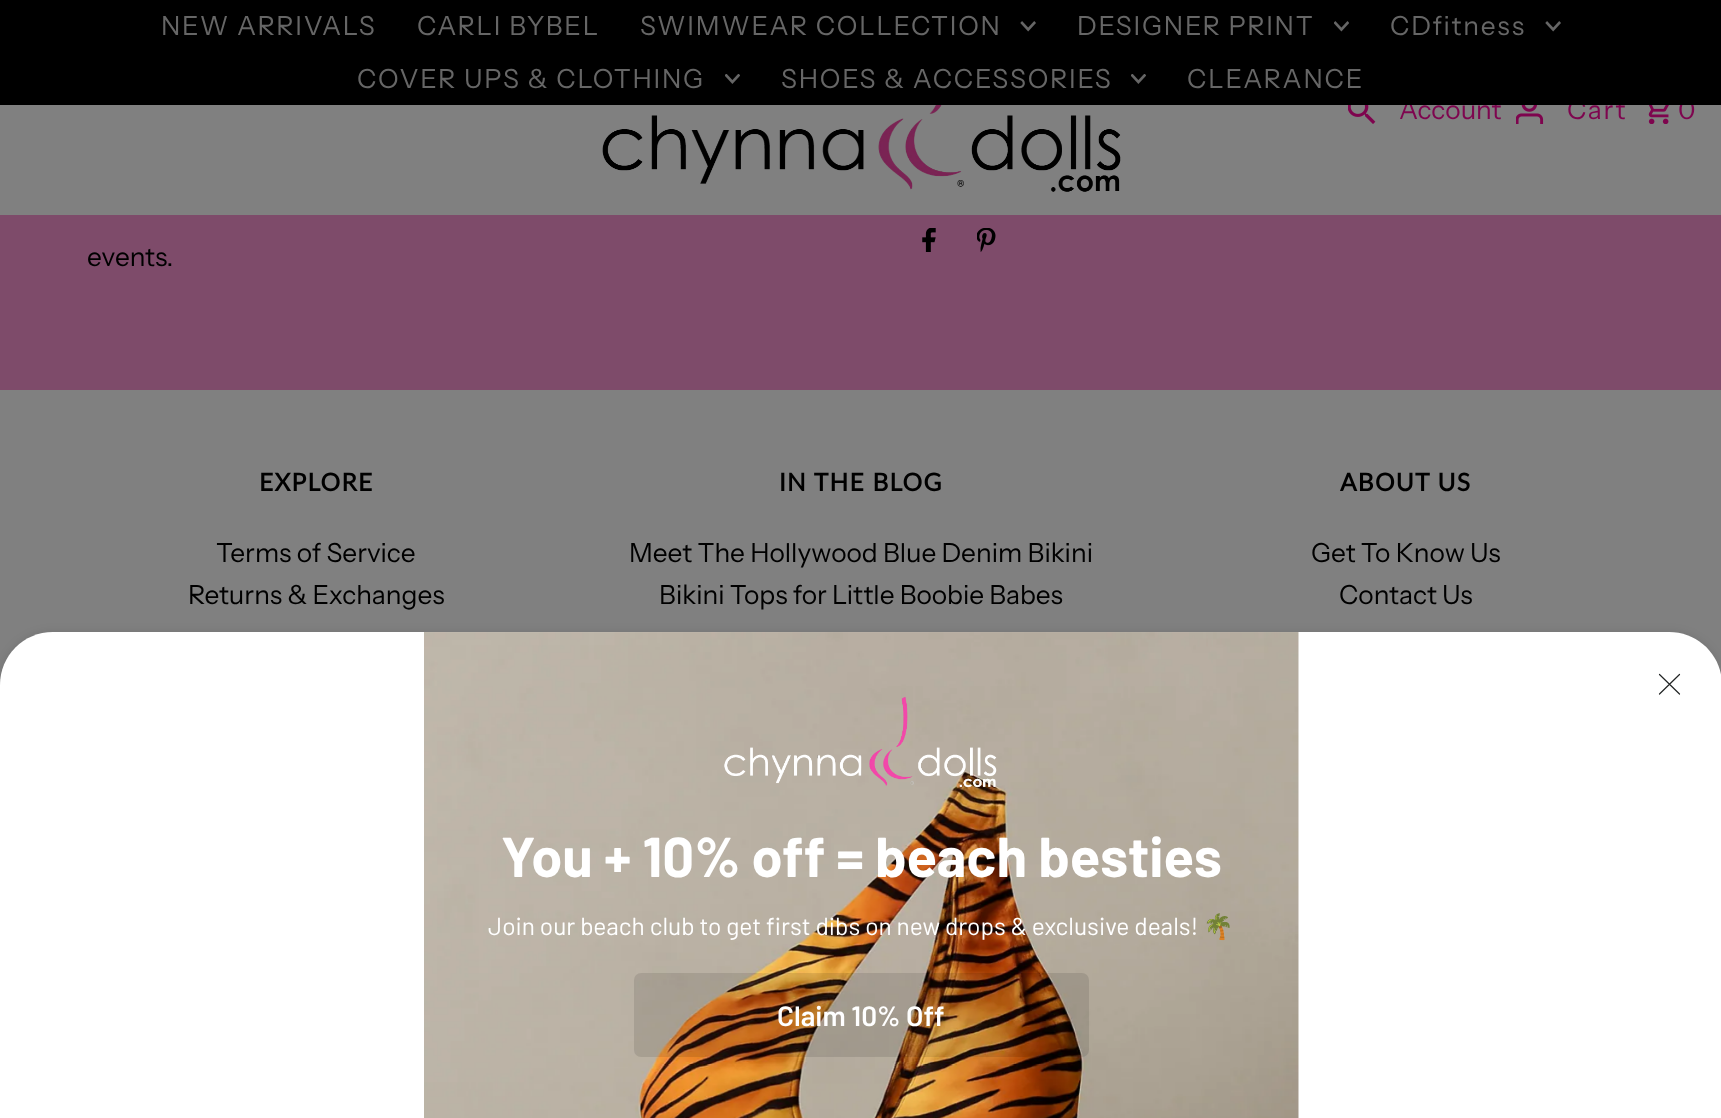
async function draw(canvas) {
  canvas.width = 1721
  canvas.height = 1118
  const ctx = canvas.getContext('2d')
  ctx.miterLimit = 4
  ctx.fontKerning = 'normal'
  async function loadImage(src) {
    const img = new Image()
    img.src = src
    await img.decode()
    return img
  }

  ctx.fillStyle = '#808080'
  ctx.fillRect(0, 0, 1721, 1118)
  ctx.font = '26.25px Instrument Sans'
  ctx.fillStyle = '#7e054f'
  ctx.fillText('Account', 1399, 119)
  ctx.letterSpacing = '1.75px'
  ctx.fillText('Cart', 1567, 119)
  ctx.fillText('0', 1678, 119)
  ctx.fillStyle = '#000'
  ctx.fillRect(0, 0, 1721, 105)
  ctx.fillStyle = '#666'
  ctx.fillText('NEW ARRIVALS', 161, 35)
  ctx.fillText('CARLI BYBEL', 417, 35)
  ctx.fillText('SWIMWEAR COLLECTION', 640, 35)
  ctx.drawImage(await loadImage('image0.png'), 1020, 21, 16, 11)
  ctx.fillText('DESIGNER PRINT', 1077, 35)
  ctx.drawImage(await loadImage('image1.png'), 1334, 21, 15, 11)
  ctx.fillText('CDfitness', 1390, 35)
  ctx.drawImage(await loadImage('image0.png'), 1545, 21, 16, 11)
  ctx.fillText('COVER UPS & CLOTHING', 357, 88)
  ctx.drawImage(await loadImage('image2.png'), 725, 74, 15, 10)
  ctx.fillText('SHOES & ACCESSORIES', 781, 88)
  ctx.drawImage(await loadImage('image2.png'), 1131, 74, 15, 10)
  ctx.fillText('CLEARANCE', 1187, 88)
  ctx.drawImage(await loadImage('image3.png'), 602, 105, 519, 87)
  ctx.drawImage(await loadImage('image4.png'), 1348, 105, 28, 19)
  ctx.drawImage(await loadImage('image5.png'), 1516, 105, 28, 19)
  ctx.drawImage(await loadImage('image6.png'), 1648, 105, 21, 19)
  ctx.fillStyle = '#7e4b6a'
  ctx.fillRect(0, 215, 1721, 175)
  ctx.drawImage(await loadImage('image7.png'), 922, 228, 14, 24)
  ctx.drawImage(await loadImage('image8.png'), 977, 228, 19, 24)
  ctx.letterSpacing = '0px'
  ctx.fillStyle = '#000'
  ctx.fillText('events.', 87, 266)
  ctx.letterSpacing = '1.25px'
  ctx.font = 'bold 24.5px Lato'
  ctx.fillText('EXPLORE', 259, 491)
  ctx.letterSpacing = '0px'
  ctx.font = '26.25px Instrument Sans'
  ctx.fillText('Terms of Service', 216, 562)
  ctx.fillText('Returns & Exchanges', 188, 604)
  ctx.letterSpacing = '1.25px'
  ctx.font = 'bold 24.5px Lato'
  ctx.fillText('IN THE BLOG', 779, 491)
  ctx.letterSpacing = '0px'
  ctx.font = '26.25px Instrument Sans'
  ctx.fillText('Meet The Hollywood Blue Denim Bikini', 629, 562)
  ctx.fillText('Bikini Tops for Little Boobie Babes', 659, 604)
  ctx.letterSpacing = '1.25px'
  ctx.font = 'bold 24.5px Lato'
  ctx.fillText('ABOUT US', 1340, 491)
  ctx.letterSpacing = '0px'
  ctx.font = '26.25px Instrument Sans'
  ctx.fillText('Get To Know Us', 1311, 562)
  ctx.fillText('Contact Us', 1339, 604)
  ctx.fillStyle = '#0000001a'
  ctx.filter = 'blur(5px)'
  ctx.beginPath()
  ctx.roundRect(0, 632, 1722, 486, 53)
  ctx.fill()
  ctx.filter = 'none'
  ctx.fillStyle = '#fff'
  ctx.beginPath()
  ctx.moveTo(53, 632)
  ctx.lineTo(1669, 632)
  ctx.bezierCurveTo(1698.5, 632, 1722, 655.5, 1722, 685)
  ctx.lineTo(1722, 1118)
  ctx.lineTo(0, 1118)
  ctx.lineTo(0, 685)
  ctx.bezierCurveTo(0, 655.5, 23.5, 632, 53, 632)
  ctx.closePath()
  ctx.fill()
  ctx.beginPath()
  ctx.moveTo(1659.5, 674.5)
  ctx.lineTo(1679.5, 694)
  ctx.moveTo(1679.5, 674.5)
  ctx.lineTo(1659.5, 694)
  ctx.strokeStyle = '#222525'
  ctx.lineWidth = 1.2
  ctx.lineCap = 'round'
  ctx.stroke()
  ctx.drawImage(await loadImage('image9.png'), 424, 632, 875, 486)
  ctx.drawImage(await loadImage('image10.png'), 724, 697, 273, 91)
  ctx.font = 'bold 56px Barlow'
  ctx.fillText('You + 10% off = beach besties', 501, 877)
  ctx.font = '24.5px Barlow'
  ctx.fillText('Join our beach club to get first dibs on new drops & exclusive deals!', 488, 935)
  ctx.font = '24.5px Noto Color Emoji'
  ctx.fillText('🌴', 1203, 935)
  ctx.fillStyle = '#0000001a'
  ctx.beginPath()
  ctx.roundRect(634, 973, 455, 84, 7)
  ctx.fill()
  ctx.font = '600 28px Barlow'
  ctx.fillStyle = '#fff'
  ctx.fillText('Claim 10% Off', 777, 1026)
}

draw(document.querySelector('canvas'))
